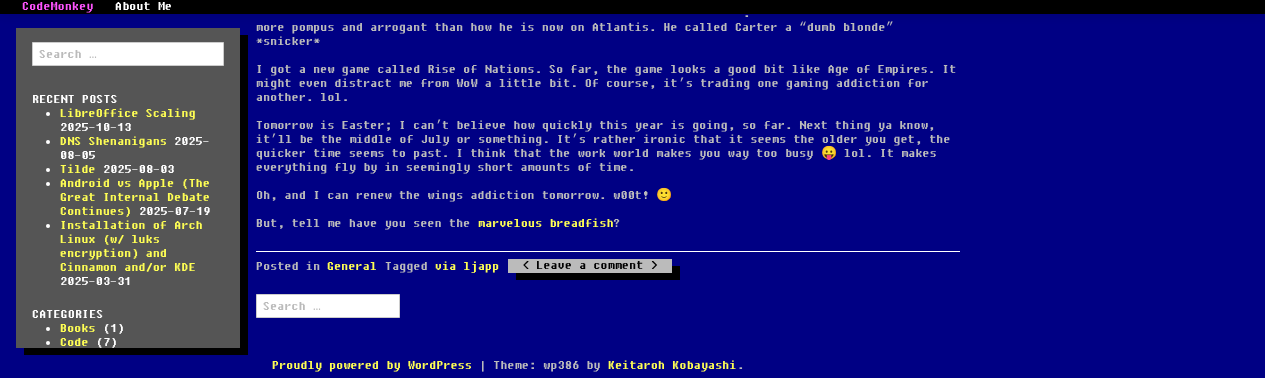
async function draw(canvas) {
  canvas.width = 1265
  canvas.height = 378
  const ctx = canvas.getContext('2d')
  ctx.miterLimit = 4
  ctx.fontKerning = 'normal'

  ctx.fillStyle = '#000084'
  ctx.fillRect(0, 0, 1265, 378)
  ctx.fillStyle = '#000'
  ctx.beginPath()
  ctx.moveTo(24, 348)
  ctx.lineTo(24, 355)
  ctx.lineTo(248, 355)
  ctx.lineTo(248, 35)
  ctx.lineTo(240, 35)
  ctx.lineTo(240, 348)
  ctx.closePath()
  ctx.fill()
  ctx.fillStyle = '#555'
  ctx.fillRect(16, 28, 224, 320)
  ctx.fillStyle = '#0000001a'
  ctx.filter = 'blur(5px)'
  ctx.beginPath()
  ctx.rect(0, 1, 1265, 14)
  ctx.fill()
  ctx.filter = 'none'
  ctx.fillStyle = '#000'
  ctx.fillRect(0, 0, 1265, 14)
  ctx.font = '600 13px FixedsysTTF'
  ctx.fillStyle = '#f5f'
  ctx.fillText('CodeMonkey', 22, 10)
  ctx.fillStyle = '#fff'
  ctx.fillText('About Me', 115, 10)
  ctx.beginPath()
  ctx.rect(32.5, 42.5, 191, 23)
  ctx.fill()
  ctx.strokeStyle = '#ccc'
  ctx.stroke()
  ctx.fillStyle = '#bbb'
  ctx.fillText('Search', 39, 58)
  ctx.font = '13px Liberation Mono'
  ctx.fillText('…', 89, 58)
  ctx.font = '600 13px FixedsysTTF'
  ctx.fillStyle = '#fff'
  ctx.fillText('RECENT POSTS', 32, 103)
  ctx.beginPath()
  ctx.arc(48, 114, 2, 0, 2 * Math.PI)
  ctx.fill()
  ctx.fillStyle = '#fefe54'
  ctx.fillText('LibreOffice Scaling', 60, 117)
  ctx.fillStyle = '#fff'
  ctx.fillText('2025-10-13', 60, 131)
  ctx.beginPath()
  ctx.arc(48, 142, 2, 0, 2 * Math.PI)
  ctx.fill()
  ctx.fillStyle = '#fefe54'
  ctx.fillText('DNS Shenanigans', 60, 145)
  ctx.fillStyle = '#fff'
  ctx.fillText('2025-', 174, 145)
  ctx.fillText('08-05', 60, 159)
  ctx.beginPath()
  ctx.arc(48, 170, 2, 0, 2 * Math.PI)
  ctx.fill()
  ctx.fillStyle = '#fefe54'
  ctx.fillText('Tilde', 60, 173)
  ctx.fillStyle = '#fff'
  ctx.fillText('2025-08-03', 103, 173)
  ctx.beginPath()
  ctx.arc(48, 184, 2, 0, 2 * Math.PI)
  ctx.fill()
  ctx.fillStyle = '#fefe54'
  ctx.fillText('Android vs Apple (The', 60, 187)
  ctx.fillText('Great Internal Debate', 60, 201)
  ctx.fillText('Continues)', 60, 215)
  ctx.fillStyle = '#fff'
  ctx.fillText('2025-07-19', 139, 215)
  ctx.beginPath()
  ctx.arc(48, 226, 2, 0, 2 * Math.PI)
  ctx.fill()
  ctx.fillStyle = '#fefe54'
  ctx.fillText('Installation of Arch', 60, 229)
  ctx.fillText('Linux (w/ luks', 60, 243)
  ctx.fillText('encryption) and', 60, 257)
  ctx.fillText('Cinnamon and/or KDE', 60, 271)
  ctx.fillStyle = '#fff'
  ctx.fillText('2025-03-31', 60, 285)
  ctx.fillText('CATEGORIES', 32, 318)
  ctx.beginPath()
  ctx.arc(48, 329, 2, 0, 2 * Math.PI)
  ctx.fill()
  ctx.fillStyle = '#fefe54'
  ctx.fillText('Books', 60, 332)
  ctx.fillStyle = '#fff'
  ctx.fillText('(1)', 103, 332)
  ctx.beginPath()
  ctx.arc(48, 343, 2, 0, 2 * Math.PI)
  ctx.fill()
  ctx.fillStyle = '#fefe54'
  ctx.fillText('Code', 60, 346)
  ctx.fillStyle = '#fff'
  ctx.fillText('(7)', 96, 346)
  ctx.fillStyle = '#bbb'
  ctx.fillText('.', 743, 17)
  ctx.fillText('more pompus and arrogant than how he is now on Atlantis. He called Carter a', 256, 31)
  ctx.font = '13px Liberation Mono'
  ctx.fillText('“', 799, 31)
  ctx.font = '600 13px FixedsysTTF'
  ctx.fillText('dumb blonde', 807, 31)
  ctx.font = '13px Liberation Mono'
  ctx.fillText('”', 886, 31)
  ctx.font = '600 13px FixedsysTTF'
  ctx.fillText('*snicker*', 256, 45)
  ctx.fillText('I got a new game called Rise of Nations. So far, the game looks a good bit like Age of Empires. It', 256, 73)
  ctx.fillText('might even distract me from WoW a little bit. Of course, it', 256, 87)
  ctx.font = '13px Liberation Mono'
  ctx.fillText('’', 678, 87)
  ctx.font = '600 13px FixedsysTTF'
  ctx.fillText('s trading one gaming addiction for', 686, 87)
  ctx.fillText('another. lol.', 256, 101)
  ctx.fillText('Tomorrow is Easter; I can', 256, 129)
  ctx.font = '13px Liberation Mono'
  ctx.fillText('’', 435, 129)
  ctx.font = '600 13px FixedsysTTF'
  ctx.fillText('t believe how quickly this year is going, so far. Next thing ya know,', 442, 129)
  ctx.fillText('it', 256, 143)
  ctx.font = '13px Liberation Mono'
  ctx.fillText('’', 270, 143)
  ctx.font = '600 13px FixedsysTTF'
  ctx.fillText('ll be the middle of July or something. It', 278, 143)
  ctx.font = '13px Liberation Mono'
  ctx.fillText('’', 571, 143)
  ctx.font = '600 13px FixedsysTTF'
  ctx.fillText('s rather ironic that it seems the older you get, the', 579, 143)
  ctx.fillText('quicker time seems to past. I think that the work world makes you way too busy', 256, 157)
  ctx.font = '13px Noto Color Emoji'
  ctx.fillText('😛', 821, 157)
  ctx.font = '600 13px FixedsysTTF'
  ctx.fillText('lol. It makes', 844, 157)
  ctx.fillText('everything fly by in seemingly short amounts of time.', 256, 171)
  ctx.fillText('Oh, and I can renew the wings addiction tomorrow. w00t!', 256, 199)
  ctx.font = '13px Noto Color Emoji'
  ctx.fillText('🙂', 656, 199)
  ctx.font = '600 13px FixedsysTTF'
  ctx.fillText('But, tell me have you seen the', 256, 227)
  ctx.fillStyle = '#fefe54'
  ctx.fillText('marvelous breadfish', 478, 227)
  ctx.fillStyle = '#bbb'
  ctx.fillText('?', 613, 227)
  ctx.fillStyle = '#fff'
  ctx.fillRect(256, 251, 704, 1)
  ctx.fillStyle = '#bbb'
  ctx.fillText('Posted in', 256, 270)
  ctx.fillStyle = '#fefe54'
  ctx.fillText('General', 327, 270)
  ctx.fillStyle = '#bbb'
  ctx.fillText('Tagged', 385, 270)
  ctx.fillStyle = '#fefe54'
  ctx.fillText('via ljapp', 435, 270)
  ctx.fillStyle = '#000'
  ctx.beginPath()
  ctx.moveTo(516, 273)
  ctx.lineTo(516, 280)
  ctx.lineTo(680, 280)
  ctx.lineTo(680, 266)
  ctx.lineTo(672, 266)
  ctx.lineTo(672, 273)
  ctx.closePath()
  ctx.fill()
  ctx.fillStyle = '#bbb'
  ctx.fillRect(508, 259, 164, 14)
  ctx.fillStyle = '#000'
  ctx.fillText('< Leave a comment >', 522, 269)
  ctx.fillStyle = '#fff'
  ctx.beginPath()
  ctx.rect(256.5, 294.5, 143, 23)
  ctx.fill()
  ctx.stroke()
  ctx.fillStyle = '#bbb'
  ctx.fillText('Search', 263, 310)
  ctx.font = '13px Liberation Mono'
  ctx.fillText('…', 313, 310)
  ctx.font = '600 13px FixedsysTTF'
  ctx.fillStyle = '#fefe54'
  ctx.fillText('Proudly powered by WordPress', 272, 369)
  ctx.fillStyle = '#bbb'
  ctx.fillText('| Theme: wp386 by', 479, 369)
  ctx.fillStyle = '#fefe54'
  ctx.fillText('Keitaroh Kobayashi', 608, 369)
  ctx.fillStyle = '#bbb'
  ctx.fillText('.', 737, 369)
}

draw(document.querySelector('canvas'))
